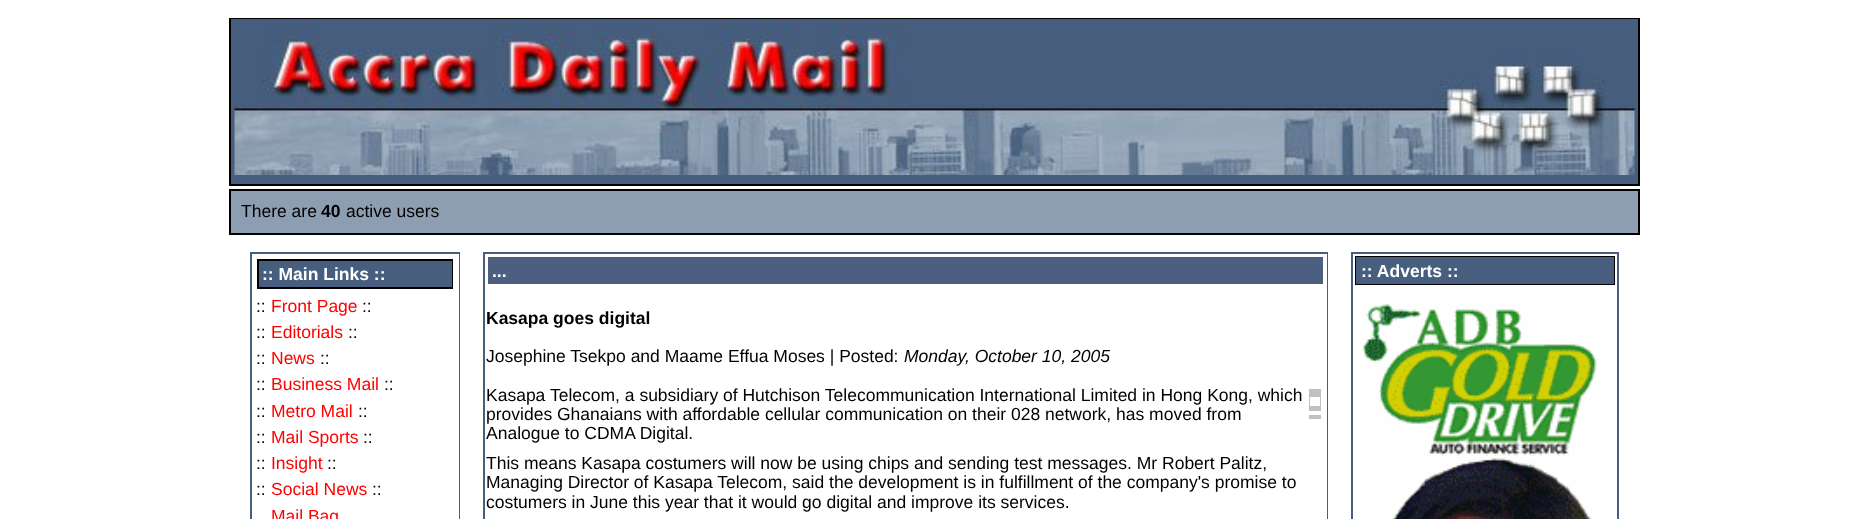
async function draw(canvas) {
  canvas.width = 1867
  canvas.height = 519
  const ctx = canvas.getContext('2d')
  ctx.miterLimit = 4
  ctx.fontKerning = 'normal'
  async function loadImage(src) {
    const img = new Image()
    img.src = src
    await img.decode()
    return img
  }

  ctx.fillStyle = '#fff'
  ctx.fillRect(0, 0, 1867, 519)
  ctx.fillStyle = '#000'
  ctx.fillRect(229, 18, 1411, 168)
  ctx.fillStyle = '#475e7e'
  ctx.fillRect(231, 19, 1407, 165)
  ctx.drawImage(await loadImage('image0.png'), 234, 23, 1401, 152)
  ctx.fillStyle = '#000'
  ctx.fillRect(229, 189, 1411, 46)
  ctx.fillStyle = '#8d9eb2'
  ctx.fillRect(231, 191, 1407, 42)
  ctx.font = '17.5px Liberation Sans'
  ctx.fillStyle = '#000'
  ctx.fillText('There are', 241, 217)
  ctx.font = 'bold 17.5px Liberation Sans'
  ctx.fillText('40', 321, 217)
  ctx.font = '17.5px Liberation Sans'
  ctx.fillText('active users', 346, 217)
  ctx.fillStyle = '#475e7e'
  ctx.fillRect(250, 252, 210, 267)
  ctx.fillStyle = '#fff'
  ctx.fillRect(252, 254, 207, 265)
  ctx.fillStyle = '#000'
  ctx.fillRect(257, 259, 196, 30)
  ctx.fillStyle = '#475e7e'
  ctx.fillRect(259, 261, 193, 26)
  ctx.font = 'bold 17.5px Liberation Sans'
  ctx.fillStyle = '#fff'
  ctx.fillText(':: Main Links ::', 262, 280)
  ctx.font = '17.5px Liberation Sans'
  ctx.fillStyle = '#000'
  ctx.fillText('::', 256, 312)
  ctx.fillStyle = '#f00'
  ctx.fillText('Front Page', 271, 312)
  ctx.fillStyle = '#000'
  ctx.fillText('::', 362, 312)
  ctx.fillText('::', 256, 338)
  ctx.fillStyle = '#f00'
  ctx.fillText('Editorials', 271, 338)
  ctx.fillStyle = '#000'
  ctx.fillText('::', 348, 338)
  ctx.fillText('::', 256, 364)
  ctx.fillStyle = '#f00'
  ctx.fillText('News', 271, 364)
  ctx.fillStyle = '#000'
  ctx.fillText('::', 320, 364)
  ctx.fillText('::', 256, 390)
  ctx.fillStyle = '#f00'
  ctx.fillText('Business Mail', 271, 390)
  ctx.fillStyle = '#000'
  ctx.fillText('::', 384, 390)
  ctx.fillText('::', 256, 417)
  ctx.fillStyle = '#f00'
  ctx.fillText('Metro Mail', 271, 417)
  ctx.fillStyle = '#000'
  ctx.fillText('::', 358, 417)
  ctx.fillText('::', 256, 443)
  ctx.fillStyle = '#f00'
  ctx.fillText('Mail Sports', 271, 443)
  ctx.fillStyle = '#000'
  ctx.fillText('::', 363, 443)
  ctx.fillText('::', 256, 469)
  ctx.fillStyle = '#f00'
  ctx.fillText('Insight', 271, 469)
  ctx.fillStyle = '#000'
  ctx.fillText('::', 327, 469)
  ctx.fillText('::', 256, 495)
  ctx.fillStyle = '#f00'
  ctx.fillText('Social News', 271, 495)
  ctx.fillStyle = '#000'
  ctx.fillText('::', 372, 495)
  ctx.fillStyle = '#f00'
  ctx.fillText('Mail Bag', 271, 522)
  ctx.fillStyle = '#475e7e'
  ctx.fillRect(483, 252, 845, 267)
  ctx.fillStyle = '#fff'
  ctx.fillRect(485, 254, 842, 265)
  ctx.fillStyle = '#4c5f80'
  ctx.fillRect(488, 257, 835, 27)
  ctx.font = 'bold 17.5px Liberation Sans'
  ctx.fillStyle = '#fff'
  ctx.fillText('...', 492, 277)
  ctx.fillStyle = '#000'
  ctx.fillText('Kasapa goes digital', 486, 324)
  ctx.font = '17.5px Liberation Sans'
  ctx.fillText('Josephine Tsekpo and Maame Effua Moses | Posted:', 486, 362)
  ctx.font = 'italic 17.5px Liberation Sans'
  ctx.fillText('Monday, October 10, 2005', 904, 362)
  ctx.font = '17.5px Liberation Sans'
  ctx.fillText('Kasapa Telecom, a subsidiary of Hutchison Telecommunication International Limited in Hong Kong, which', 486, 401)
  ctx.fillStyle = '#c0c0c0'
  ctx.fillRect(1309, 389, 12, 22)
  ctx.fillStyle = '#fff'
  ctx.fillRect(1310, 397, 10, 9)
  ctx.fillStyle = '#c0c0c0'
  ctx.fillRect(1309, 415, 12, 4)
  ctx.fillStyle = '#000'
  ctx.fillText('provides Ghanaians with affordable cellular communication on their 028 network, has moved from', 486, 420)
  ctx.fillText('Analogue to CDMA Digital.', 486, 439)
  ctx.fillText('This means Kasapa costumers will now be using chips and sending test messages. Mr Robert Palitz,', 486, 469)
  ctx.fillText('Managing Director of Kasapa Telecom, said the development is in fulfillment of the company\'s promise to', 486, 488)
  ctx.fillText('costumers in June this year that it would go digital and improve its services.', 486, 508)
  ctx.fillStyle = '#475e7e'
  ctx.fillRect(1351, 252, 268, 267)
  ctx.fillStyle = '#fff'
  ctx.fillRect(1353, 254, 264, 265)
  ctx.fillStyle = '#000'
  ctx.fillRect(1355, 256, 260, 29)
  ctx.fillStyle = '#475e7e'
  ctx.fillRect(1356, 257, 258, 27)
  ctx.font = 'bold 17.5px Liberation Sans'
  ctx.fillStyle = '#fff'
  ctx.fillText(':: Adverts ::', 1361, 277)
  ctx.drawImage(await loadImage('image1.png'), 1362, 304, 235, 215)
}

draw(document.querySelector('canvas'))
